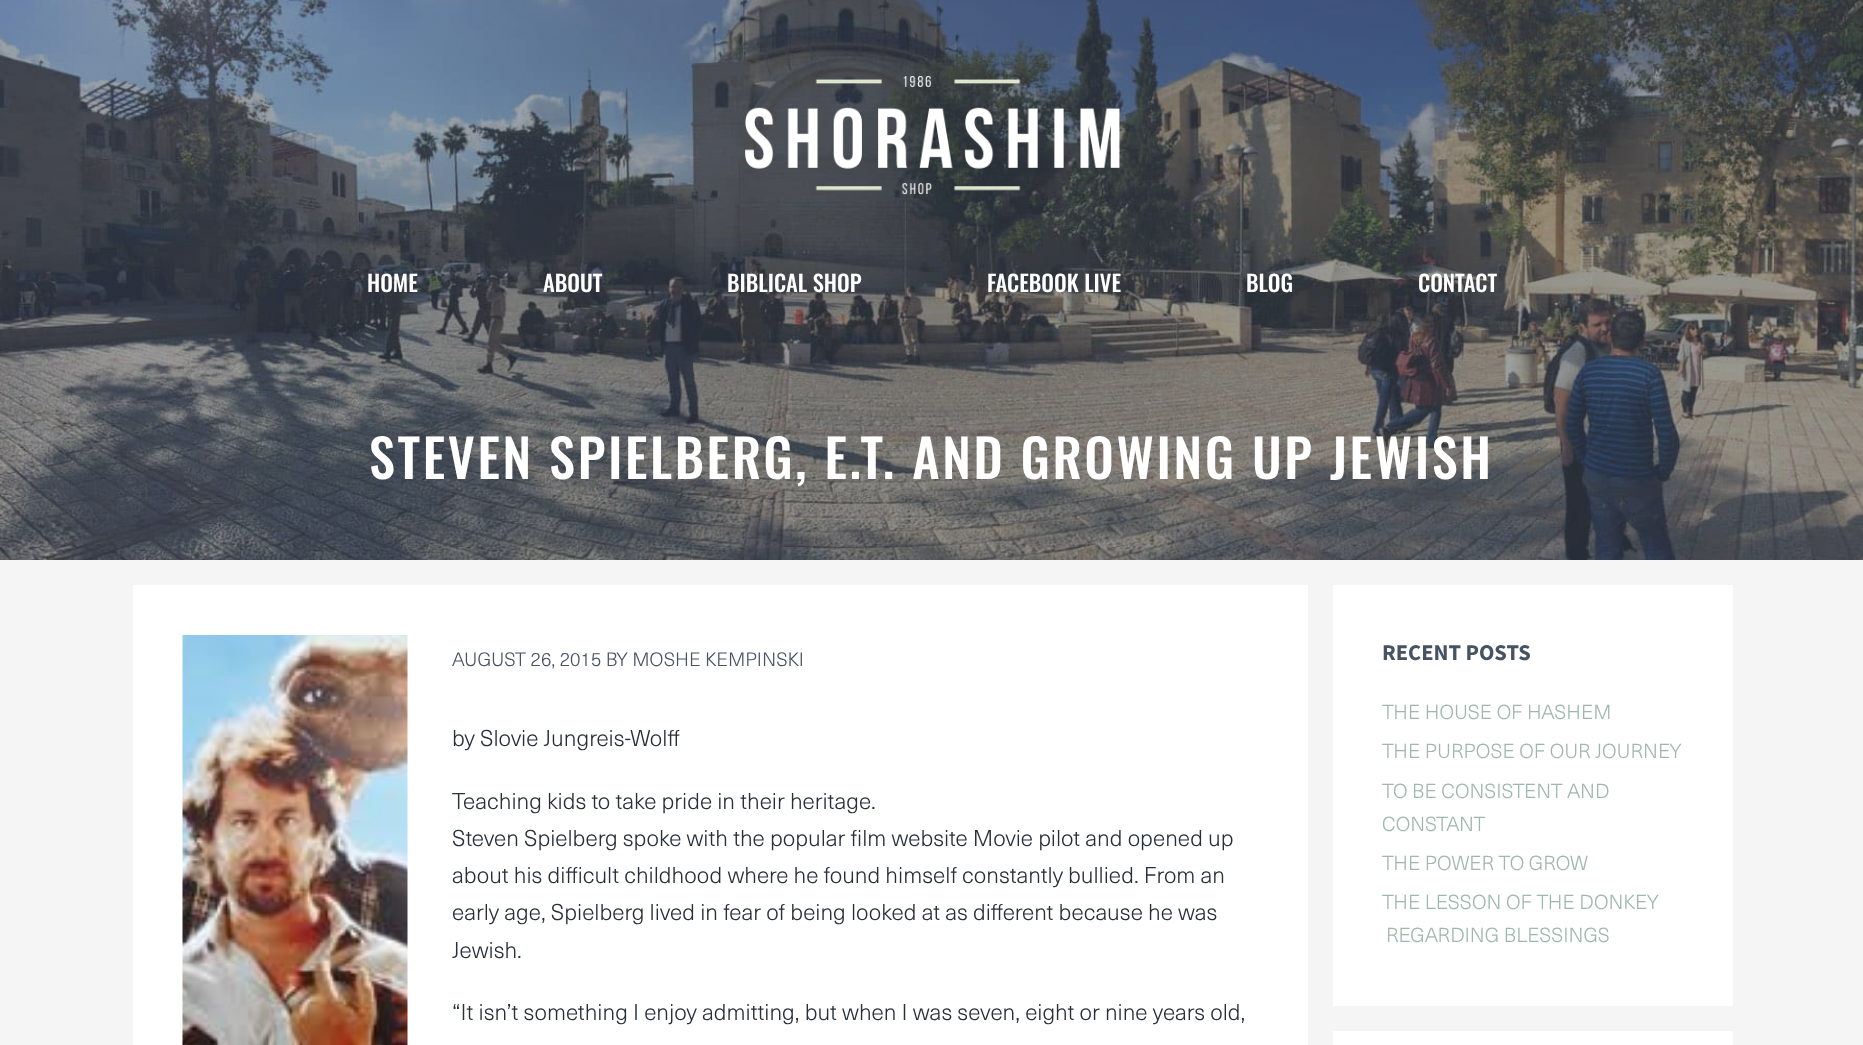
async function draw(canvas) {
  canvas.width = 1863
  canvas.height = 1045
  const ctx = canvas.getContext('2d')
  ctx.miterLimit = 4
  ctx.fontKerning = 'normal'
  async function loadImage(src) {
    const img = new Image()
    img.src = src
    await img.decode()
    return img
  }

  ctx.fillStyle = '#f5f5f5'
  ctx.fillRect(0, 0, 1863, 1045)
  ctx.drawImage(await loadImage('image1.png'), 0, 0, 1863, 560)
  ctx.drawImage(await loadImage('image0.png'), 745, 75, 375, 120)
  ctx.font = '500 22.5px Oswald'
  ctx.fillStyle = '#fff'
  ctx.fillText('HOME', 367, 292)
  ctx.fillText('ABOUT', 543, 292)
  ctx.fillText('BIBLICAL SHOP', 727, 292)
  ctx.fillText('FACEBOOK LIVE', 987, 292)
  ctx.fillText('BLOG', 1246, 292)
  ctx.fillText('CONTACT', 1418, 292)
  ctx.letterSpacing = '2.6px'
  ctx.font = '500 52.5px Oswald'
  ctx.fillText('STEVEN SPIELBERG, E.T. AND GROWING UP JEWISH', 369, 479)
  ctx.fillRect(133, 585, 1175, 460)
  ctx.drawImage(await loadImage('image2.png'), 182, 635, 226, 410)
  ctx.letterSpacing = '0px'
  ctx.font = '300 19.1px "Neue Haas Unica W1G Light"'
  ctx.fillStyle = '#465362'
  ctx.fillText('AUGUST 26, 2015 BY MOSHE KEMPINSKI', 452, 666)
  ctx.font = '300 22.5px "Neue Haas Unica W1G Light"'
  ctx.fillStyle = '#272f38'
  ctx.fillText('by Slovie Jungreis-Wolff', 452, 746)
  ctx.fillText('Teaching kids to take pride in their heritage.', 452, 809)
  ctx.fillText('Steven Spielberg spoke with the popular film website Movie pilot and opened up', 452, 846)
  ctx.fillText('about his difficult childhood where he found himself constantly bullied. From an', 452, 883)
  ctx.fillText('early age, Spielberg lived in fear of being looked at as different because he was', 452, 920)
  ctx.fillText('Jewish.', 452, 958)
  ctx.fillText('“It isn’t something I enjoy admitting, but when I was seven, eight or nine years old,', 452, 1020)
  ctx.fillStyle = '#fff'
  ctx.fillRect(1333, 585, 400, 421)
  ctx.font = 'bold 22.5px Source Sans Pro'
  ctx.fillStyle = '#465362'
  ctx.fillText('RECENT POSTS', 1382, 660)
  ctx.font = '300 20px "Neue Haas Unica W1G Light"'
  ctx.fillStyle = '#9fb8ad'
  ctx.fillText('THE HOUSE OF HASHEM', 1382, 719)
  ctx.fillText('THE PURPOSE OF OUR JOURNEY', 1382, 758)
  ctx.fillText('TO BE CONSISTENT AND', 1382, 798)
  ctx.fillText('CONSTANT', 1382, 831)
  ctx.fillText('THE POWER TO GROW', 1382, 870)
  ctx.fillText('THE LESSON OF THE DONKEY', 1382, 909)
  ctx.fillText('REGARDING BLESSINGS', 1386, 942)
  ctx.fillStyle = '#fff'
  ctx.fillRect(1333, 1031, 400, 14)
}

draw(document.querySelector('canvas'))
